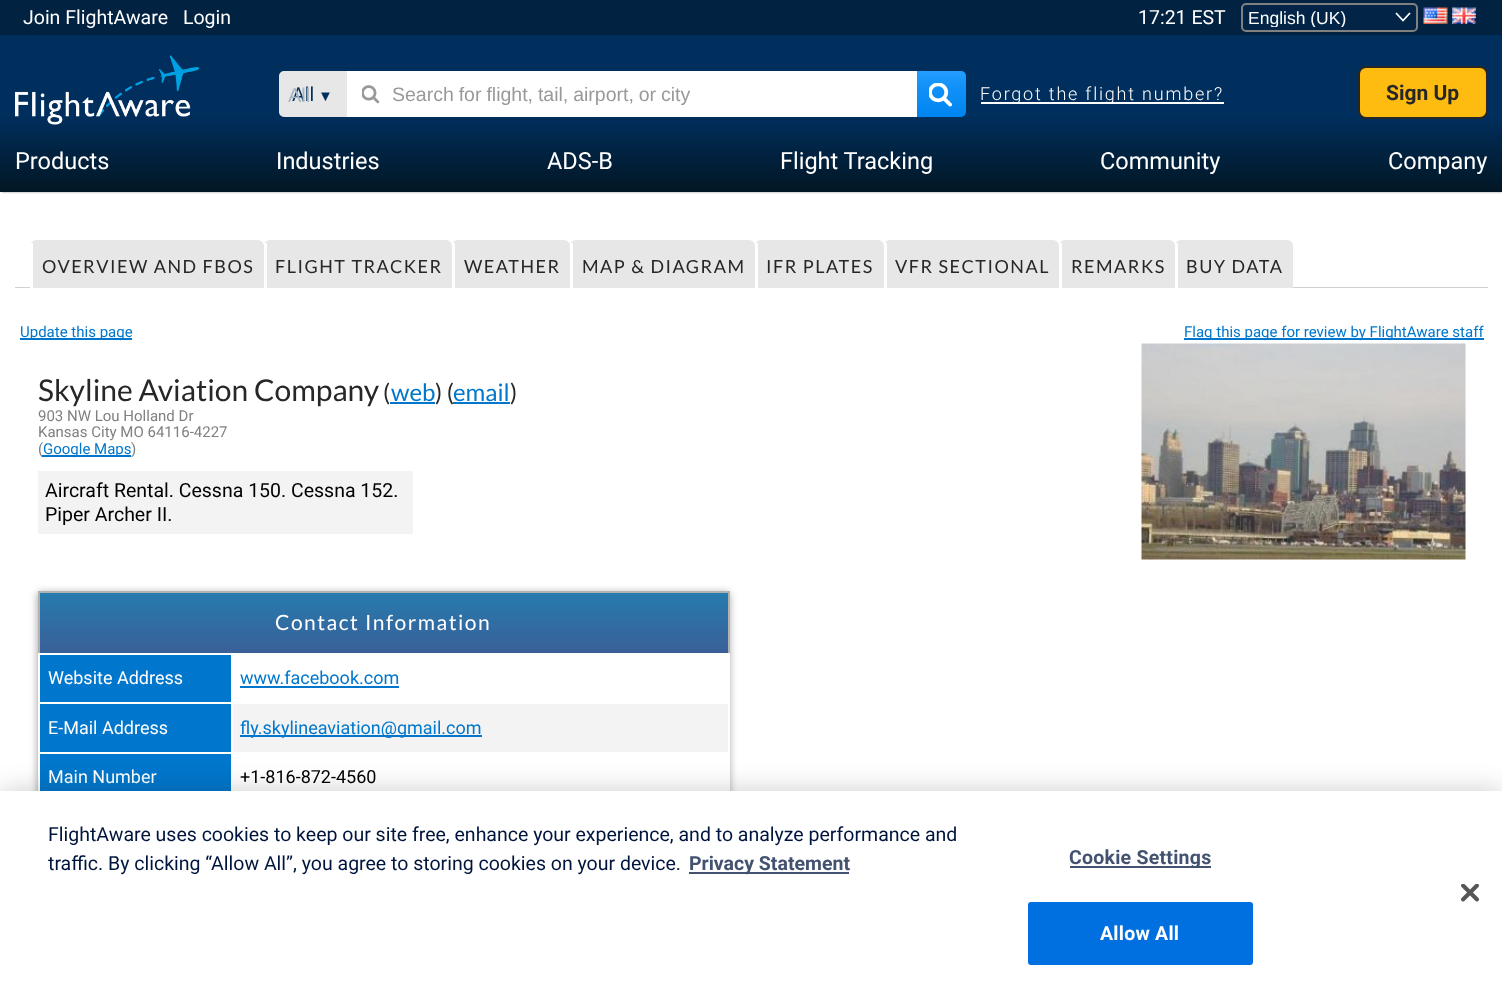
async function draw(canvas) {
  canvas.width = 1502
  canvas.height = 994
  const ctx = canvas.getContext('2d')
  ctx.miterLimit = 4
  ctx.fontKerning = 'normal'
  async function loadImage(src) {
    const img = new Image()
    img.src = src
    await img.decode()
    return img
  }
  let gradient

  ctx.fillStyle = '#fff'
  ctx.fillRect(0, 0, 1502, 994)
  ctx.fillStyle = '#888'
  ctx.filter = 'blur(1px)'
  ctx.beginPath()
  ctx.rect(2, 3, 1500, 189)
  ctx.fill()
  ctx.filter = 'none'
  gradient = ctx.createLinearGradient(752, 0, 752, 192)
  gradient.addColorStop(0, '#002f5d')
  gradient.addColorStop(0.6, '#002f5d')
  gradient.addColorStop(1, '#021624')
  ctx.fillStyle = gradient
  ctx.fillRect(0, 35, 1502, 157)
  ctx.fillStyle = '#022241'
  ctx.fillRect(0, 0, 1502, 35)
  ctx.font = '19.5px Roboto'
  ctx.fillStyle = '#fff'
  ctx.fillText('Join FlightAware', 23, 24)
  ctx.fillText('Login', 183, 24)
  ctx.fillText('17:21 EST', 1138, 24)
  ctx.fillStyle = '#022547'
  ctx.beginPath()
  ctx.roundRect(1241, 3, 177, 29, 5)
  ctx.fill()
  ctx.beginPath()
  ctx.moveTo(1396, 13)
  ctx.lineTo(1403, 20.5)
  ctx.lineTo(1410, 13)
  ctx.strokeStyle = '#fff'
  ctx.lineWidth = 1.8
  ctx.stroke()
  ctx.beginPath()
  ctx.roundRect(1242, 4, 175, 27, 4)
  ctx.strokeStyle = '#808080'
  ctx.lineWidth = 2
  ctx.stroke()
  ctx.save()
  ctx.beginPath()
  ctx.rect(1248, 8, 162, 19)
  ctx.clip()
  ctx.font = '17.5px Liberation Sans'
  ctx.fillStyle = '#fff'
  ctx.fillText('English (UK)', 1248, 24)
  ctx.restore()
  ctx.drawImage(await loadImage('image0.png'), 1423, 7, 25, 17)
  ctx.drawImage(await loadImage('image1.png'), 1452, 7, 24, 17)
  ctx.drawImage(await loadImage('image2.png'), 15, 55, 185, 70)
  ctx.fillStyle = '#e7e7e7'
  ctx.beginPath()
  ctx.roundRect(280, 72, 66, 44, [4, 0, 0, 4])
  ctx.fill()
  ctx.strokeStyle = '#e7e7e7'
  ctx.stroke()
  ctx.fillStyle = '#002f5d'
  ctx.fillText('All', 292, 101)
  ctx.font = '15px Liberation Sans'
  ctx.fillText('▼', 318, 101)
  ctx.font = '20px Liberation Sans'
  ctx.fillStyle = '#a8b5c1'
  ctx.fillText('All', 288, 102)
  ctx.fillStyle = '#fff'
  ctx.fillRect(347, 71, 570, 46)
  ctx.drawImage(await loadImage('image3.png'), 362, 85, 18, 19)
  ctx.wordSpacing = '-0.5px'
  ctx.font = '19.5px Liberation Sans'
  ctx.fillStyle = '#999'
  ctx.fillText('Search for flight, tail, airport, or city', 392, 101)
  gradient = ctx.createLinearGradient(941, 117, 941, 71)
  gradient.addColorStop(0, '#0084f0')
  gradient.addColorStop(0.66, '#1291f8')
  gradient.addColorStop(1, '#249dff')
  ctx.fillStyle = gradient
  ctx.beginPath()
  ctx.roundRect(917, 71, 49, 46, [0, 5, 5, 0])
  ctx.fill()
  ctx.drawImage(await loadImage('image4.png'), 929, 83, 23, 24)
  ctx.fillStyle = '#fff'
  ctx.fillRect(981, 102, 243, 2)
  ctx.letterSpacing = '1.8px'
  ctx.wordSpacing = '0px'
  ctx.font = '300 18px Roboto'
  ctx.fillText('Forgot the flight number?', 980, 100)
  ctx.fillStyle = '#febc11'
  ctx.beginPath()
  ctx.roundRect(1359, 67, 128, 51, 7)
  ctx.fill()
  ctx.strokeStyle = '#272727'
  ctx.stroke()
  ctx.letterSpacing = '0px'
  ctx.font = 'bold 21px Roboto'
  ctx.fillStyle = '#272727'
  ctx.fillText('Sign Up', 1386, 100)
  ctx.font = '23.5px Roboto'
  ctx.fillStyle = '#fff'
  ctx.fillText('Products', 15, 169)
  ctx.fillText('Industries', 276, 169)
  ctx.fillText('ADS-B', 547, 169)
  ctx.fillText('Flight Tracking', 780, 169)
  ctx.fillText('Community', 1100, 169)
  ctx.fillText('Company', 1388, 169)
  ctx.fillStyle = '#d1d1d1'
  ctx.fillRect(15, 287, 1473, 1)
  ctx.save()
  ctx.beginPath()
  ctx.rect(15, 228, 1473, 60)
  ctx.clip()
  ctx.fillStyle = '#e7e7e7'
  ctx.beginPath()
  ctx.roundRect(30, 240, 234, 53, 6)
  ctx.fill()
  ctx.restore()
  ctx.letterSpacing = '1.5px'
  ctx.font = '18px Lato'
  ctx.fillStyle = '#272727'
  ctx.fillText('OVERVIEW AND FBOS', 42, 273)
  ctx.fillStyle = '#fff'
  ctx.fillRect(30, 243, 3, 45)
  ctx.save()
  ctx.beginPath()
  ctx.rect(15, 228, 1473, 60)
  ctx.clip()
  ctx.fillStyle = '#e7e7e7'
  ctx.beginPath()
  ctx.roundRect(264, 240, 188, 53, 6)
  ctx.fill()
  ctx.restore()
  ctx.fillStyle = '#272727'
  ctx.fillText('FLIGHT TRACKER', 275, 273)
  ctx.fillStyle = '#fff'
  ctx.fillRect(264, 243, 3, 45)
  ctx.save()
  ctx.beginPath()
  ctx.rect(15, 228, 1473, 60)
  ctx.clip()
  ctx.fillStyle = '#e7e7e7'
  ctx.beginPath()
  ctx.roundRect(452, 240, 118, 53, 6)
  ctx.fill()
  ctx.restore()
  ctx.fillStyle = '#272727'
  ctx.fillText('WEATHER', 464, 273)
  ctx.fillStyle = '#fff'
  ctx.fillRect(452, 243, 3, 45)
  ctx.save()
  ctx.beginPath()
  ctx.rect(15, 228, 1473, 60)
  ctx.clip()
  ctx.fillStyle = '#e7e7e7'
  ctx.beginPath()
  ctx.roundRect(570, 240, 185, 53, 6)
  ctx.fill()
  ctx.restore()
  ctx.fillStyle = '#272727'
  ctx.fillText('MAP & DIAGRAM', 582, 273)
  ctx.fillStyle = '#fff'
  ctx.fillRect(570, 243, 3, 45)
  ctx.save()
  ctx.beginPath()
  ctx.rect(15, 228, 1473, 60)
  ctx.clip()
  ctx.fillStyle = '#e7e7e7'
  ctx.beginPath()
  ctx.roundRect(755, 240, 129, 53, 6)
  ctx.fill()
  ctx.restore()
  ctx.fillStyle = '#272727'
  ctx.fillText('IFR PLATES', 766, 273)
  ctx.fillStyle = '#fff'
  ctx.fillRect(755, 243, 3, 45)
  ctx.save()
  ctx.beginPath()
  ctx.rect(15, 228, 1473, 60)
  ctx.clip()
  ctx.fillStyle = '#e7e7e7'
  ctx.beginPath()
  ctx.roundRect(884, 240, 175, 53, 6)
  ctx.fill()
  ctx.restore()
  ctx.fillStyle = '#272727'
  ctx.fillText('VFR SECTIONAL', 895, 273)
  ctx.fillStyle = '#fff'
  ctx.fillRect(884, 243, 3, 45)
  ctx.save()
  ctx.beginPath()
  ctx.rect(15, 228, 1473, 60)
  ctx.clip()
  ctx.fillStyle = '#e7e7e7'
  ctx.beginPath()
  ctx.roundRect(1059, 240, 116, 53, 6)
  ctx.fill()
  ctx.restore()
  ctx.fillStyle = '#272727'
  ctx.fillText('REMARKS', 1071, 273)
  ctx.fillStyle = '#fff'
  ctx.fillRect(1059, 243, 3, 45)
  ctx.save()
  ctx.beginPath()
  ctx.rect(15, 228, 1473, 60)
  ctx.clip()
  ctx.fillStyle = '#e7e7e7'
  ctx.beginPath()
  ctx.roundRect(1175, 240, 118, 53, 6)
  ctx.fill()
  ctx.restore()
  ctx.fillStyle = '#272727'
  ctx.fillText('BUY DATA', 1186, 273)
  ctx.fillStyle = '#fff'
  ctx.fillRect(1175, 243, 3, 45)
  ctx.fillStyle = '#07c'
  ctx.fillRect(20, 338, 112, 2)
  ctx.letterSpacing = '0px'
  ctx.font = '15px Roboto'
  ctx.fillText('Update this page', 20, 337)
  ctx.fillRect(1184, 338, 300, 2)
  ctx.fillText('Flag this page for review by FlightAware staff', 1184, 337)
  ctx.font = '30px Lato'
  ctx.fillStyle = '#272727'
  ctx.fillText('Skyline Aviation Company', 38, 401)
  ctx.font = '24px Lato'
  ctx.fillText('(', 383, 401)
  ctx.fillStyle = '#07c'
  ctx.fillRect(390, 402, 45, 2)
  ctx.fillText('web', 391, 401)
  ctx.fillStyle = '#272727'
  ctx.fillText(') (', 435, 401)
  ctx.fillStyle = '#07c'
  ctx.fillRect(453, 402, 57, 2)
  ctx.fillText('email', 453, 401)
  ctx.fillStyle = '#272727'
  ctx.fillText(')', 510, 401)
  ctx.font = '15px Roboto'
  ctx.fillStyle = '#808080'
  ctx.fillText('903 NW Lou Holland Dr', 38, 421)
  ctx.fillText('Kansas City MO 64116-4227', 38, 437)
  ctx.fillText('(', 38, 454)
  ctx.fillStyle = '#07c'
  ctx.fillRect(42, 455, 89, 2)
  ctx.fillText('Google Maps', 43, 454)
  ctx.fillStyle = '#808080'
  ctx.fillText(')', 131, 454)
  ctx.fillStyle = '#f3f3f3'
  ctx.fillRect(38, 471, 375, 63)
  ctx.font = '19.5px Roboto'
  ctx.fillStyle = '#000'
  ctx.fillText('Aircraft Rental. Cessna 150. Cessna 152.', 45, 497)
  ctx.fillText('Piper Archer II.', 45, 521)
  ctx.drawImage(await loadImage('image5.png'), 1141, 343, 325, 217)
  ctx.save()
  ctx.beginPath()
  ctx.moveTo(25, 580)
  ctx.lineTo(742, 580)
  ctx.lineTo(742, 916)
  ctx.lineTo(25, 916)
  ctx.closePath()
  ctx.moveTo(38, 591)
  ctx.lineTo(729, 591)
  ctx.lineTo(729, 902)
  ctx.lineTo(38, 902)
  ctx.closePath()
  ctx.clip('evenodd')
  ctx.fillStyle = '#32323280'
  ctx.filter = 'blur(4px)'
  ctx.beginPath()
  ctx.rect(38, 593, 691, 310)
  ctx.fill()
  ctx.filter = 'none'
  ctx.restore()
  ctx.fillStyle = '#b2b2b2'
  ctx.fillRect(38, 591, 691, 2)
  ctx.fillRect(728, 591, 2, 62)
  ctx.fillRect(38, 591, 2, 62)
  gradient = ctx.createLinearGradient(39, 593, 39, 654)
  gradient.addColorStop(0, '#267bae')
  gradient.addColorStop(1, '#3a5f97')
  ctx.fillStyle = gradient
  ctx.fillRect(40, 593, 688, 60)
  ctx.letterSpacing = '1.5px'
  ctx.font = '21px Lato'
  ctx.fillStyle = '#fff'
  ctx.fillText('Contact Information', 275, 630)
  ctx.fillStyle = '#07c'
  ctx.fillRect(40, 655, 191, 47)
  ctx.letterSpacing = '0px'
  ctx.font = '18px Roboto'
  ctx.fillStyle = '#fff'
  ctx.fillText('Website Address', 48, 684)
  ctx.fillStyle = '#07c'
  ctx.fillText('www.facebook.com', 240, 684)
  ctx.fillRect(240, 686, 159, 2)
  ctx.fillStyle = '#f3f3f3'
  ctx.fillRect(233, 704, 495, 48)
  ctx.fillStyle = '#07c'
  ctx.fillRect(40, 704, 191, 48)
  ctx.fillStyle = '#fff'
  ctx.fillText('E-Mail Address', 48, 734)
  ctx.fillStyle = '#07c'
  ctx.fillRect(240, 735, 242, 2)
  ctx.fillText('fly.skylineaviation@gmail.com', 240, 734)
  ctx.fillRect(40, 754, 191, 37)
  ctx.fillStyle = '#fff'
  ctx.fillText('Main Number', 48, 783)
  ctx.fillRect(729, 653, 1, 138)
  ctx.fillStyle = '#000'
  ctx.fillText('+1-816-872-4560', 240, 783)
  ctx.fillStyle = '#00000033'
  ctx.filter = 'blur(13.5px)'
  ctx.beginPath()
  ctx.rect(0, 791, 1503, 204)
  ctx.fill()
  ctx.filter = 'none'
  ctx.fillStyle = '#fff'
  ctx.fillRect(0, 791, 1502, 203)
  ctx.font = '19.5px Roboto'
  ctx.fillStyle = '#00153d'
  ctx.fillText('FlightAware uses cookies to keep our site free, enhance your experience, and to analyze performance and', 48, 841)
  ctx.fillText('traffic. By clicking “Allow All”, you agree to storing cookies on your device.', 48, 870)
  ctx.fillStyle = '#42526f'
  ctx.fillRect(689, 872, 160, 2)
  ctx.font = 'bold 19.5px Roboto'
  ctx.fillText('Privacy Statement', 689, 870)
  ctx.fillRect(1070, 866, 141, 2)
  ctx.letterSpacing = '0.25px'
  ctx.fillText('Cookie Settings', 1069, 864)
  ctx.fillStyle = '#0070e0'
  ctx.beginPath()
  ctx.roundRect(1029, 903, 223, 61, 2)
  ctx.fill()
  ctx.strokeStyle = '#0070e0'
  ctx.stroke()
  ctx.fillStyle = '#fff'
  ctx.fillText('Allow All', 1100, 940)
  ctx.drawImage(await loadImage('image6.png'), 1461, 884, 18, 18)
}

draw(document.querySelector('canvas'))
